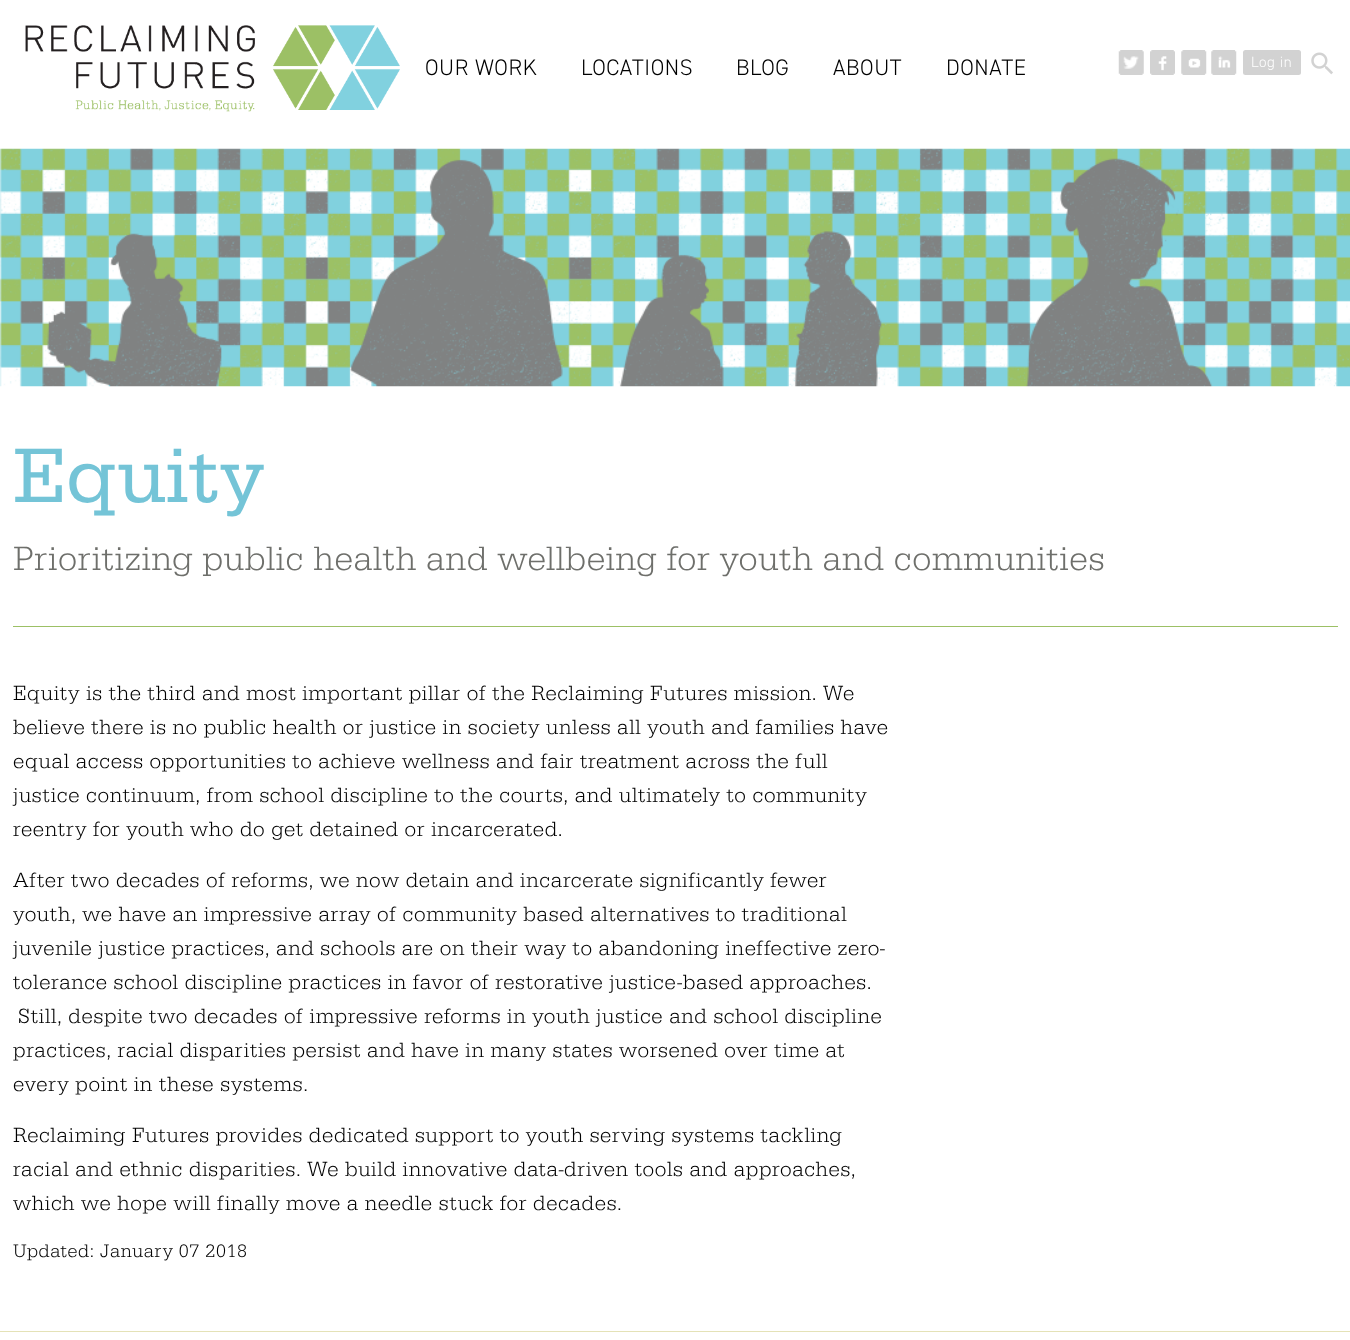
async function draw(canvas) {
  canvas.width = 1350
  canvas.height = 1340
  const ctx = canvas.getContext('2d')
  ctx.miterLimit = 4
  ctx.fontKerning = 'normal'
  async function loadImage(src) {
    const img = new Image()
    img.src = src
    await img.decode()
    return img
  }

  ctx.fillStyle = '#fff'
  ctx.fillRect(0, 0, 1350, 1340)
  ctx.drawImage(await loadImage('image0.png'), 25, 25, 375, 87)
  ctx.letterSpacing = '0.62px'
  ctx.font = '300 22.5px "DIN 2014"'
  ctx.fillStyle = '#000'
  ctx.fillText('OUR WORK', 425, 75)
  ctx.fillText('LOCATIONS', 581, 75)
  ctx.fillText('BLOG', 736, 75)
  ctx.fillText('ABOUT', 833, 75)
  ctx.fillText('DONATE', 946, 75)
  ctx.drawImage(await loadImage('image1.png'), 1118, 50, 26, 25)
  ctx.drawImage(await loadImage('image2.png'), 1150, 50, 25, 25)
  ctx.drawImage(await loadImage('image3.png'), 1181, 50, 26, 25)
  ctx.drawImage(await loadImage('image4.png'), 1211, 50, 26, 25)
  ctx.fillStyle = '#d2d2d2'
  ctx.beginPath()
  ctx.roundRect(1243, 50, 58, 25, 2.5)
  ctx.fill()
  ctx.font = '300 15px "DIN 2014"'
  ctx.fillStyle = '#fff'
  ctx.fillText('Log in', 1251, 67)
  ctx.drawImage(await loadImage('image5.png'), 1311, 52, 22, 23)
  ctx.drawImage(await loadImage('image6.png'), 0, 148, 1350, 239)
  ctx.font = '80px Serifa'
  ctx.fillStyle = '#74c4d7'
  ctx.fillText('Equity', 13, 502)
  ctx.fillStyle = '#9cc065'
  ctx.fillRect(13, 626, 1325, 1)
  ctx.font = '300 35px Serifa'
  ctx.fillStyle = '#6e6f6b'
  ctx.fillText('Prioritizing public health and wellbeing for youth and communities', 13, 570)
  ctx.font = '300 21.25px Serifa'
  ctx.fillStyle = '#000'
  ctx.fillText('Equity is the third and most important pillar of the Reclaiming Futures mission. We', 13, 700)
  ctx.fillText('believe there is no public health or justice in society unless all youth and families have', 13, 734)
  ctx.fillText('equal access opportunities to achieve wellness and fair treatment across the full', 13, 768)
  ctx.fillText('justice continuum, from school discipline to the courts, and ultimately to community', 13, 802)
  ctx.fillText('reentry for youth who do get detained or incarcerated.', 13, 836)
  ctx.fillText('After two decades of reforms, we now detain and incarcerate significantly fewer', 13, 887)
  ctx.fillText('youth, we have an impressive array of community based alternatives to traditional', 13, 921)
  ctx.fillText('juvenile justice practices, and schools are on their way to abandoning ineffective zero-', 13, 955)
  ctx.fillText('tolerance school discipline practices in favor of restorative justice-based approaches.', 13, 989)
  ctx.fillText('Still, despite two decades of impressive reforms in youth justice and school discipline', 18, 1023)
  ctx.fillText('practices, racial disparities persist and have in many states worsened over time at', 13, 1057)
  ctx.fillText('every point in these systems.', 13, 1091)
  ctx.fillText('Reclaiming Futures provides dedicated support to youth serving systems tackling', 13, 1142)
  ctx.fillText('racial and ethnic disparities. We build innovative data-driven tools and approaches,', 13, 1176)
  ctx.fillText('which we hope will finally move a needle stuck for decades.', 13, 1210)
  ctx.font = '300 18.75px Serifa'
  ctx.fillText('Updated: January 07 2018', 13, 1257)
  ctx.fillStyle = '#e4e2b7'
  ctx.fillRect(0, 1331, 1350, 1)
}

draw(document.querySelector('canvas'))
